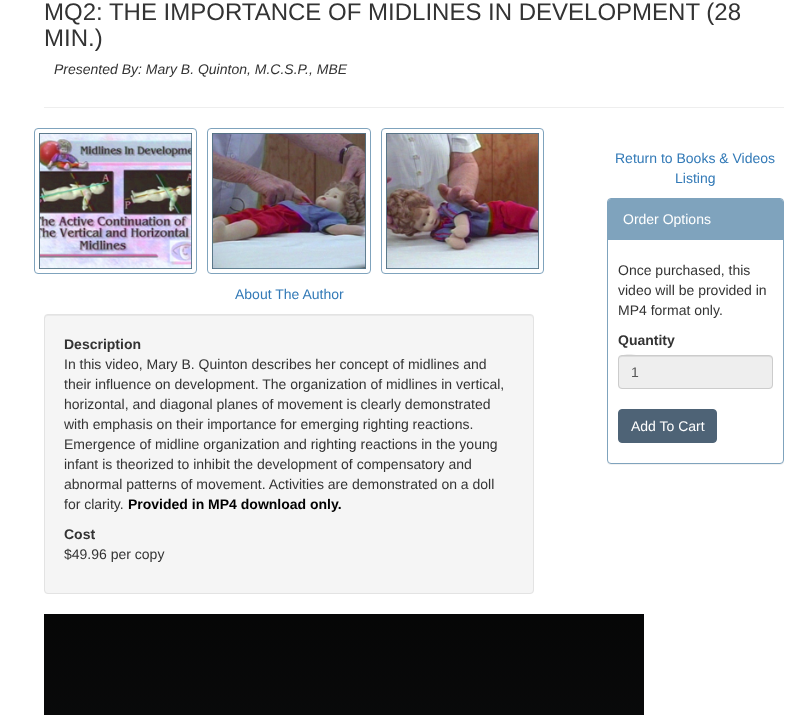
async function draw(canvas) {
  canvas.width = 798
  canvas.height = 715
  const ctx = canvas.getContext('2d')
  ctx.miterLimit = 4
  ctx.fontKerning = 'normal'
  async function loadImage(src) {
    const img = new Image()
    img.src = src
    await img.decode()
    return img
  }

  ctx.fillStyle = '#fff'
  ctx.fillRect(0, 0, 798, 715)
  ctx.font = '24px Liberation Sans'
  ctx.fillStyle = '#333'
  ctx.fillText('MQ2: THE IMPORTANCE OF MIDLINES IN DEVELOPMENT (28', 44, 20)
  ctx.fillText('MIN.)', 44, 46)
  ctx.font = 'italic 14px Liberation Sans'
  ctx.fillText('Presented By: Mary B. Quinton, M.C.S.P., MBE', 54, 74)
  ctx.fillStyle = '#eee'
  ctx.fillRect(44, 107, 740, 1)
  ctx.beginPath()
  ctx.roundRect(34.5, 128.5, 162, 145, 3.5)
  ctx.strokeStyle = '#7fa3bd'
  ctx.stroke()
  ctx.drawImage(await loadImage('image0.png'), 39, 133, 153, 136)
  ctx.beginPath()
  ctx.roundRect(207.5, 128.5, 163, 145, 3.5)
  ctx.stroke()
  ctx.drawImage(await loadImage('image1.png'), 212, 133, 154, 136)
  ctx.beginPath()
  ctx.roundRect(381.5, 128.5, 162, 145, 3.5)
  ctx.stroke()
  ctx.drawImage(await loadImage('image2.png'), 386, 133, 153, 136)
  ctx.font = '14px Liberation Sans'
  ctx.fillStyle = '#337ab7'
  ctx.fillText('About The Author', 235, 299)
  ctx.fillStyle = '#f5f5f5'
  ctx.beginPath()
  ctx.roundRect(44, 314, 490, 280, 4)
  ctx.fill()
  ctx.fillStyle = '#e9e9e9'
  ctx.beginPath()
  ctx.moveTo(48, 316)
  ctx.lineTo(530, 316)
  ctx.bezierCurveTo(532, 316, 533, 317, 533, 319)
  ctx.lineTo(533, 318)
  ctx.bezierCurveTo(533, 316, 532, 315, 530, 315)
  ctx.lineTo(48, 315)
  ctx.bezierCurveTo(46, 315, 45, 316, 45, 318)
  ctx.lineTo(45, 319)
  ctx.bezierCurveTo(45, 317, 46, 316, 48, 316)
  ctx.closePath()
  ctx.fill()
  ctx.beginPath()
  ctx.roundRect(44.5, 314.5, 489, 279, 3.5)
  ctx.strokeStyle = '#e3e3e3'
  ctx.stroke()
  ctx.font = 'bold 14px Liberation Sans'
  ctx.fillStyle = '#333'
  ctx.fillText('Description', 64, 349)
  ctx.font = '14px Liberation Sans'
  ctx.fillText('In this video, Mary B. Quinton describes her concept of midlines and', 64, 369)
  ctx.fillText('their influence on development. The organization of midlines in vertical,', 64, 389)
  ctx.fillText('horizontal, and diagonal planes of movement is clearly demonstrated', 64, 409)
  ctx.fillText('with emphasis on their importance for emerging righting reactions.', 64, 429)
  ctx.fillText('Emergence of midline organization and righting reactions in the young', 64, 449)
  ctx.fillText('infant is theorized to inhibit the development of compensatory and', 64, 469)
  ctx.fillText('abnormal patterns of movement. Activities are demonstrated on a doll', 64, 489)
  ctx.fillText('for clarity.', 64, 509)
  ctx.font = 'bold 14px Liberation Sans'
  ctx.fillStyle = '#000'
  ctx.fillText('Provided in MP4 download only.', 128, 509)
  ctx.fillStyle = '#333'
  ctx.fillText('Cost', 64, 539)
  ctx.font = '14px Liberation Sans'
  ctx.fillText('$49.96 per copy', 64, 559)
  ctx.drawImage(await loadImage('image3.png'), 44, 614, 600, 101)
  ctx.fillStyle = '#337ab7'
  ctx.fillText('Return to Books & Videos', 615, 163)
  ctx.fillText('Listing', 675, 183)
  ctx.fillStyle = '#0000000d'
  ctx.filter = 'blur(0.5px)'
  ctx.beginPath()
  ctx.roundRect(607, 199, 177, 266, 4)
  ctx.fill()
  ctx.filter = 'none'
  ctx.fillStyle = '#fff'
  ctx.beginPath()
  ctx.roundRect(607.5, 198.5, 176, 265, 3.5)
  ctx.fill()
  ctx.strokeStyle = '#7fa3bd'
  ctx.stroke()
  ctx.fillStyle = '#7fa3bd'
  ctx.beginPath()
  ctx.roundRect(608, 199, 175, 41, [3, 3, 0, 0])
  ctx.fill()
  ctx.fillStyle = '#fff'
  ctx.fillText('Order Options', 623, 224)
  ctx.fillStyle = '#333'
  ctx.fillText('Once purchased, this', 618, 275)
  ctx.fillText('video will be provided in', 618, 295)
  ctx.fillText('MP4 format only.', 618, 315)
  ctx.font = 'bold 14px Liberation Sans'
  ctx.fillText('Quantity', 618, 345)
  ctx.fillStyle = '#eee'
  ctx.beginPath()
  ctx.roundRect(618, 355, 155, 34, 4)
  ctx.fill()
  ctx.fillStyle = '#dcdcdc'
  ctx.beginPath()
  ctx.moveTo(622, 357)
  ctx.lineTo(769, 357)
  ctx.bezierCurveTo(771, 357, 772, 358, 772, 360)
  ctx.bezierCurveTo(772, 358, 772, 357, 770, 356)
  ctx.lineTo(646, 356)
  ctx.bezierCurveTo(639, 356, 619, 351, 619, 360)
  ctx.bezierCurveTo(619, 358, 620, 357, 622, 357)
  ctx.closePath()
  ctx.fill()
  ctx.beginPath()
  ctx.roundRect(618.5, 355.5, 154, 33, 3.5)
  ctx.strokeStyle = '#ccc'
  ctx.stroke()
  ctx.font = '14px Liberation Sans'
  ctx.fillStyle = '#555'
  ctx.fillText('1', 631, 377)
  ctx.fillStyle = '#4e6376'
  ctx.beginPath()
  ctx.roundRect(618.5, 409.5, 98, 33, 3.5)
  ctx.fill()
  ctx.strokeStyle = '#4e6376'
  ctx.stroke()
  ctx.fillStyle = '#fff'
  ctx.fillText('Add To Cart', 631, 431)
}

draw(document.querySelector('canvas'))
